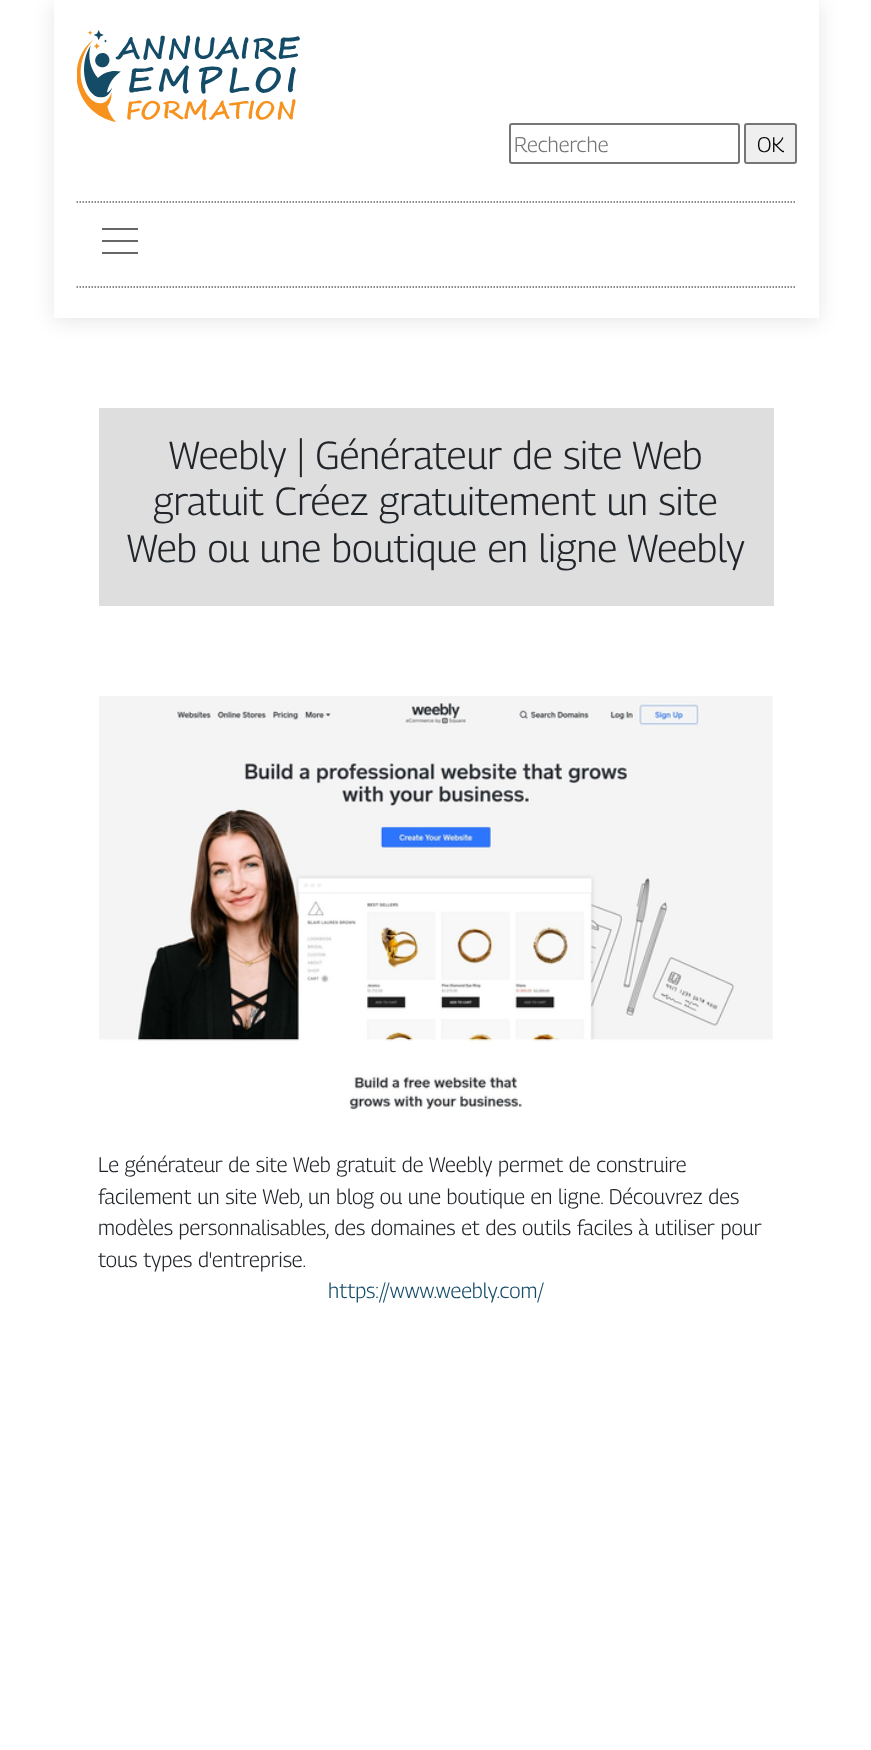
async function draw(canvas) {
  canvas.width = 871
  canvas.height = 1750
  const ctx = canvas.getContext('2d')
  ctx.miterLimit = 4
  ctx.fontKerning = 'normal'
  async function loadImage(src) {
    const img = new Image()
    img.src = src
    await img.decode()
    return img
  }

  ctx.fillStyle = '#fff'
  ctx.fillRect(0, 0, 871, 1750)
  ctx.save()
  ctx.beginPath()
  ctx.moveTo(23, 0)
  ctx.lineTo(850, 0)
  ctx.lineTo(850, 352)
  ctx.lineTo(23, 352)
  ctx.closePath()
  ctx.moveTo(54, 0)
  ctx.lineTo(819, 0)
  ctx.lineTo(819, 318)
  ctx.lineTo(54, 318)
  ctx.closePath()
  ctx.clip('evenodd')
  ctx.fillStyle = '#0000001a'
  ctx.filter = 'blur(10px)'
  ctx.beginPath()
  ctx.rect(54, 3, 765, 318)
  ctx.fill()
  ctx.filter = 'none'
  ctx.restore()
  ctx.drawImage(await loadImage('image0.png'), 77, 30, 223, 92)
  ctx.beginPath()
  ctx.roundRect(510, 124, 229, 39, 2)
  ctx.strokeStyle = '#767676'
  ctx.lineWidth = 2
  ctx.stroke()
  ctx.font = '100 21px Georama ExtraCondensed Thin'
  ctx.fillStyle = '#757575'
  ctx.fillText('Recherche', 514, 152)
  ctx.fillStyle = '#efefef'
  ctx.beginPath()
  ctx.roundRect(745, 124, 51, 39, 2)
  ctx.fill()
  ctx.stroke()
  ctx.fillStyle = '#000'
  ctx.fillText('OK', 757, 152)
  ctx.beginPath()
  ctx.moveTo(76.5, 202)
  ctx.lineTo(796.5, 202)
  ctx.strokeStyle = '#666'
  ctx.lineWidth = 1.5
  ctx.setLineDash([1.5, 1.5])
  ctx.stroke()
  ctx.beginPath()
  ctx.moveTo(76.5, 287)
  ctx.lineTo(796.5, 287)
  ctx.stroke()
  ctx.fillStyle = '#666'
  ctx.fillRect(102, 228, 36, 2)
  ctx.fillRect(102, 240, 36, 2)
  ctx.fillRect(102, 252, 36, 2)
  ctx.fillStyle = '#dedede'
  ctx.fillRect(99, 408, 675, 198)
  ctx.font = '100 39px Georama ExtraCondensed Thin'
  ctx.fillStyle = '#212529'
  ctx.fillText('Weebly | Générateur de site Web', 169, 469)
  ctx.fillText('gratuit Créez gratuitement un site', 153, 515)
  ctx.fillText('Web ou une boutique en ligne Weebly', 127, 562)
  ctx.drawImage(await loadImage('image1.png'), 99, 696, 674, 414)
  ctx.font = '100 21px Georama ExtraCondensed Thin'
  ctx.fillText('Le générateur de site Web gratuit de Weebly permet de construire', 98, 1172)
  ctx.fillText('facilement un site Web, un blog ou une boutique en ligne. Découvrez des', 98, 1204)
  ctx.fillText('modèles personnalisables, des domaines et des outils faciles à utiliser pour', 98, 1235)
  ctx.fillText('tous types d\'entreprise.', 98, 1267)
  ctx.fillStyle = '#144c67'
  ctx.fillText('https://www.weebly.com/', 328, 1298)
}

draw(document.querySelector('canvas'))
